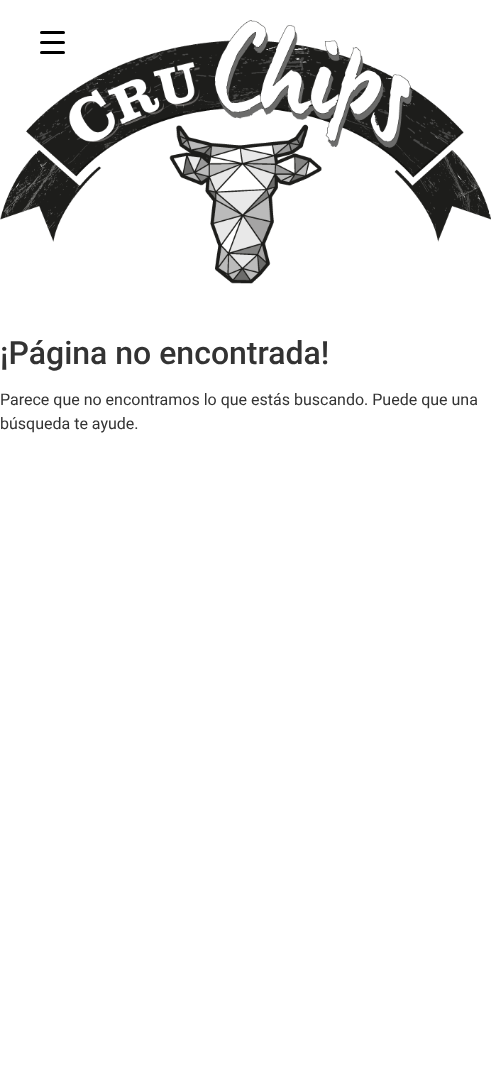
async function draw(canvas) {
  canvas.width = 491
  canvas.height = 1074
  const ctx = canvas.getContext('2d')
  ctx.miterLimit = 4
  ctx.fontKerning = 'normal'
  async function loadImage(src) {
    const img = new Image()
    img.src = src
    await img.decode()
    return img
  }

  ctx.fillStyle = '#fff'
  ctx.fillRect(0, 0, 491, 1074)
  ctx.drawImage(await loadImage('image0.png'), 0, 20, 491, 264)
  ctx.fillStyle = '#000'
  ctx.beginPath()
  ctx.roundRect(40, 41, 25, 3, 1.5)
  ctx.fill()
  ctx.beginPath()
  ctx.roundRect(40, 31, 25, 3, 1.5)
  ctx.fill()
  ctx.beginPath()
  ctx.roundRect(40, 51, 25, 3, 1.5)
  ctx.fill()
  ctx.font = '500 32px Roboto'
  ctx.fillStyle = '#333'
  ctx.fillText('¡Página no encontrada!', 0, 364)
  ctx.font = '16px Roboto'
  ctx.fillText('Parece que no encontramos lo que estás buscando. Puede que una', 0, 405)
  ctx.fillText('búsqueda te ayude.', 0, 429)
}

draw(document.querySelector('canvas'))
